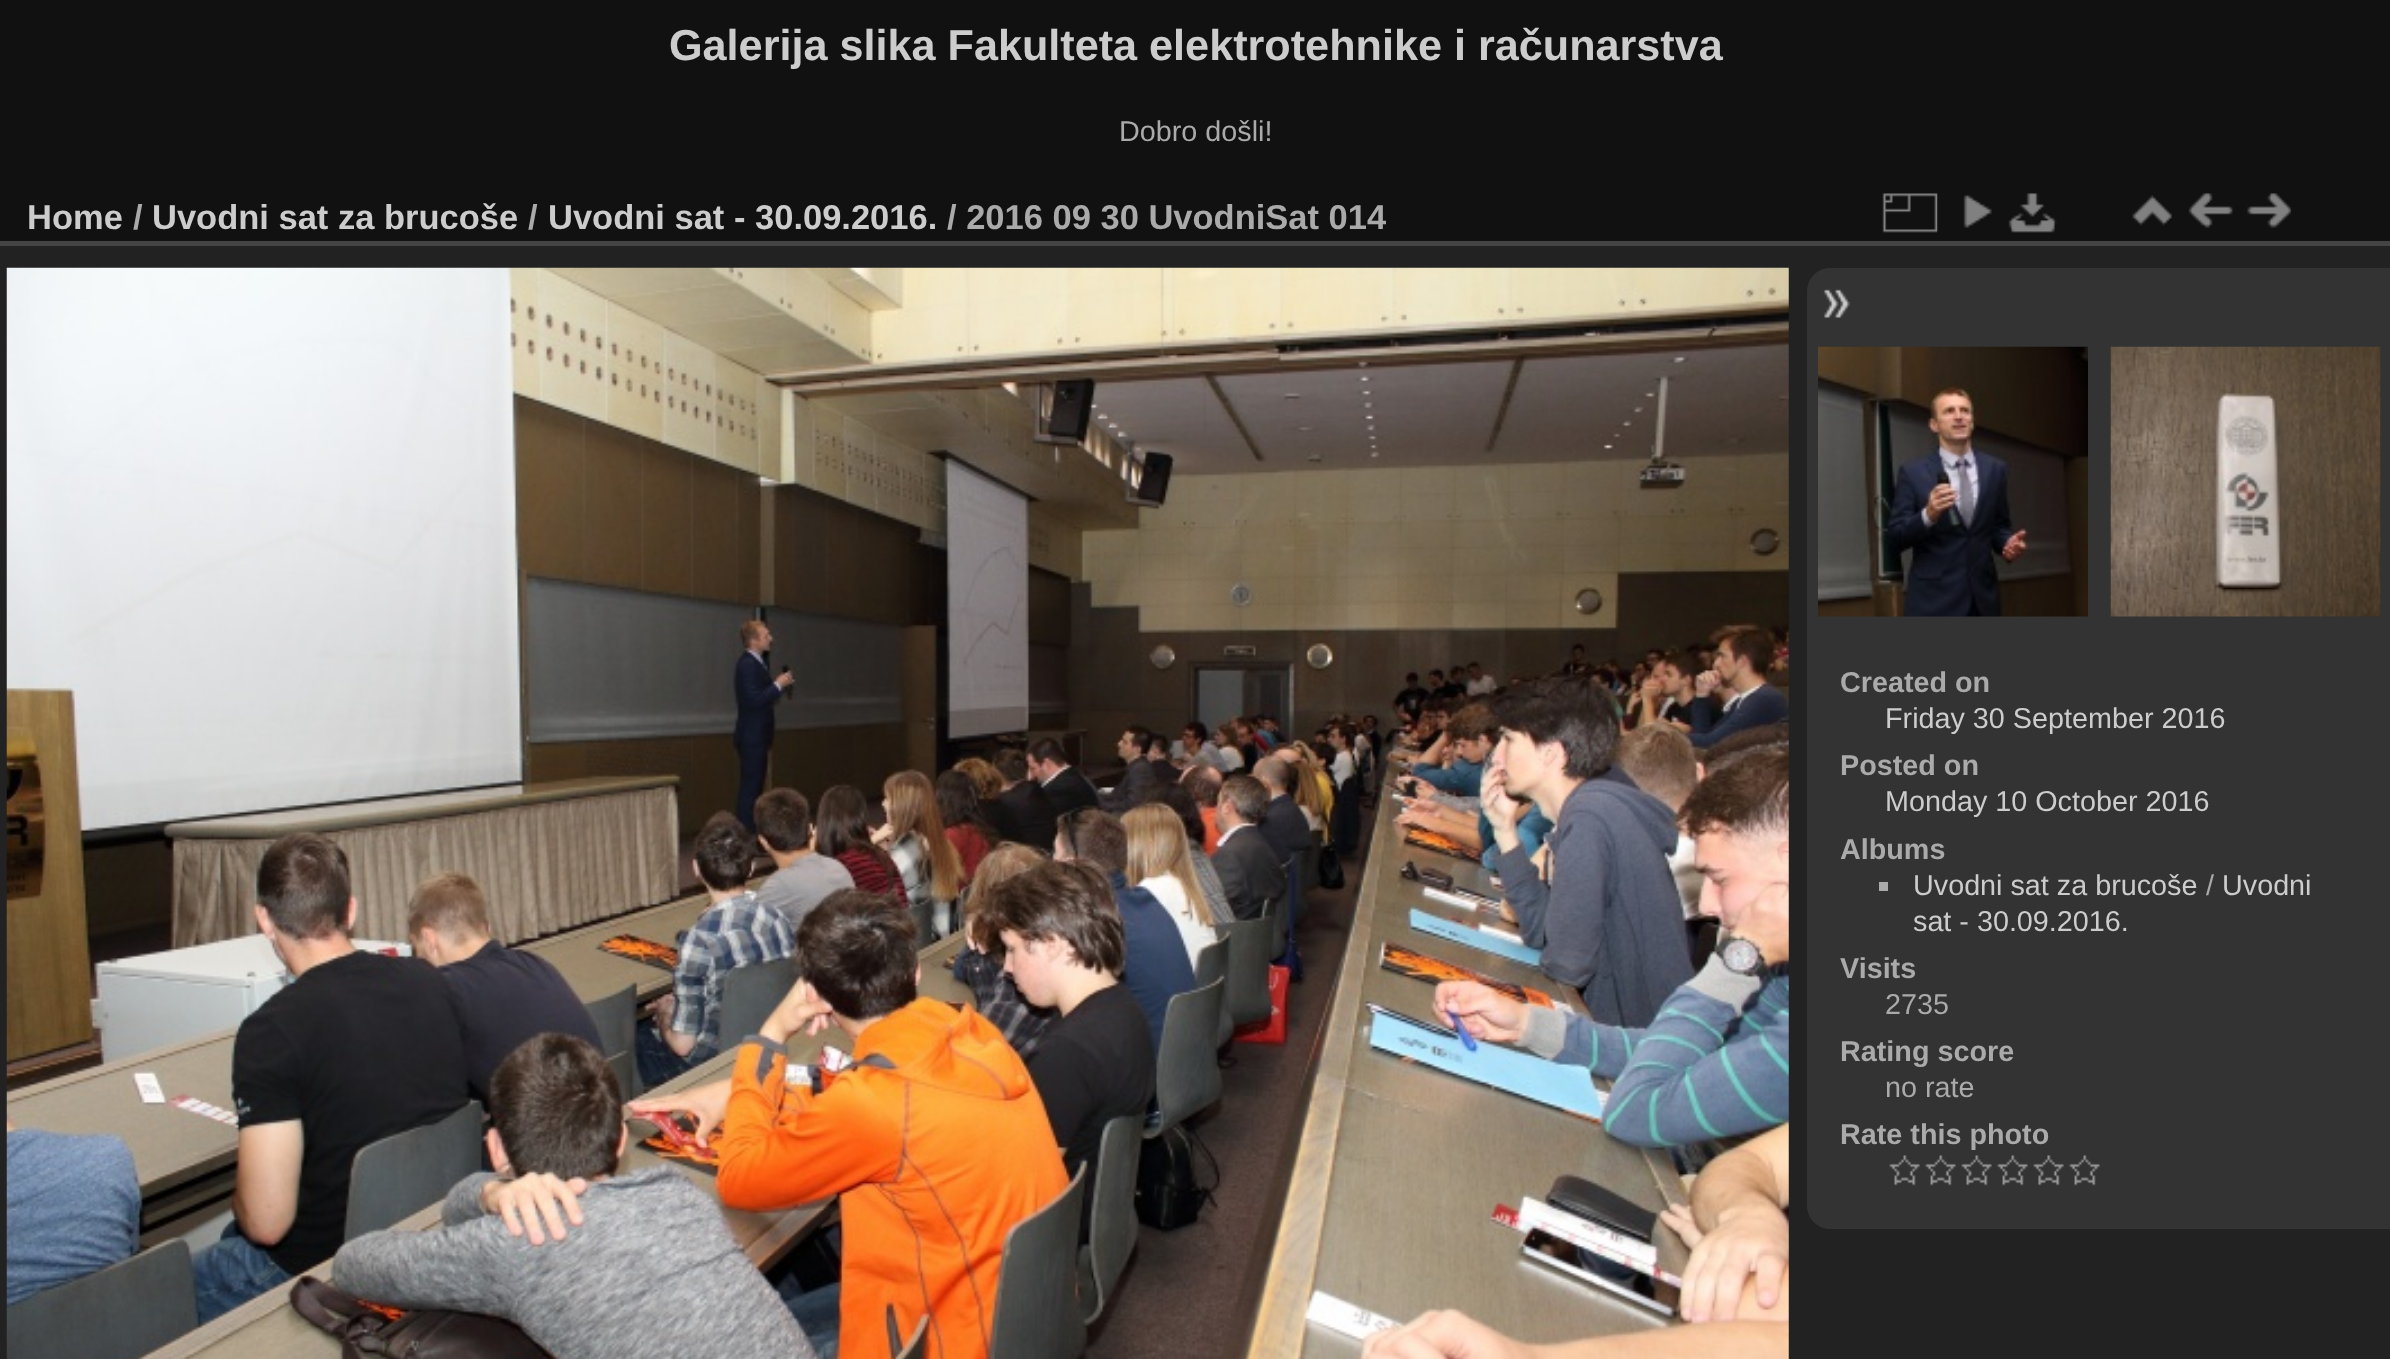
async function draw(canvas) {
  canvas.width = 2390
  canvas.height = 1359
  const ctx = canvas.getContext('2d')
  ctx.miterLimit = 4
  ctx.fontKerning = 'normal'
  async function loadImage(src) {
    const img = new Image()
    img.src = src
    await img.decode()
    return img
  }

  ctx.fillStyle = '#111'
  ctx.fillRect(0, 0, 2390, 1359)
  ctx.font = 'bold 43.2px Liberation Sans'
  ctx.fillStyle = '#ccc'
  ctx.fillText('Galerija slika Fakulteta elektrotehnike i računarstva', 669, 60)
  ctx.font = '28.75px Liberation Sans'
  ctx.fillStyle = '#aaa'
  ctx.fillText('Dobro došli!', 1119, 141)
  ctx.fillStyle = '#222'
  ctx.fillRect(0, 246, 2390, 1113)
  ctx.fillStyle = '#444'
  ctx.fillRect(0, 241, 2390, 5)
  ctx.font = 'bold 34.5px Liberation Sans'
  ctx.fillStyle = '#ccc'
  ctx.fillText('Home', 27, 229)
  ctx.fillStyle = '#aaa'
  ctx.fillText('/', 133, 229)
  ctx.fillStyle = '#ccc'
  ctx.fillText('Uvodni sat za brucoše', 152, 229)
  ctx.fillStyle = '#aaa'
  ctx.fillText('/', 528, 229)
  ctx.fillStyle = '#ccc'
  ctx.fillText('Uvodni sat - 30.09.2016.', 548, 229)
  ctx.fillStyle = '#aaa'
  ctx.fillText('/ 2016 09 30 UvodniSat 014', 947, 229)
  ctx.drawImage(await loadImage('image0.png'), 1882, 193, 56, 40)
  ctx.drawImage(await loadImage('image1.png'), 1963, 195, 29, 33)
  ctx.drawImage(await loadImage('image2.png'), 2008, 193, 49, 40)
  ctx.drawImage(await loadImage('image3.png'), 2132, 195, 40, 31)
  ctx.drawImage(await loadImage('image4.png'), 2188, 193, 45, 35)
  ctx.drawImage(await loadImage('image5.png'), 2247, 193, 45, 35)
  ctx.drawImage(await loadImage('image6.png'), 6, 267, 1783, 1092)
  ctx.fillStyle = '#333'
  ctx.beginPath()
  ctx.moveTo(1830, 268)
  ctx.lineTo(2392, 268)
  ctx.lineTo(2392, 1229)
  ctx.lineTo(1830, 1229)
  ctx.bezierCurveTo(1817.5, 1229, 1807, 1218.5, 1807, 1206)
  ctx.lineTo(1807, 291)
  ctx.bezierCurveTo(1807, 278.5, 1817.5, 268, 1830, 268)
  ctx.closePath()
  ctx.fill()
  ctx.drawImage(await loadImage('image7.png'), 1823, 289, 27, 29)
  ctx.drawImage(await loadImage('image8.png'), 1818, 346, 270, 271)
  ctx.drawImage(await loadImage('image9.png'), 2110, 346, 271, 271)
  ctx.font = 'bold 28.75px Liberation Sans'
  ctx.fillStyle = '#aaa'
  ctx.fillText('Created on', 1840, 692)
  ctx.font = '28.75px Liberation Sans'
  ctx.fillStyle = '#ccc'
  ctx.fillText('Friday 30 September 2016', 1885, 728)
  ctx.font = 'bold 28.75px Liberation Sans'
  ctx.fillStyle = '#aaa'
  ctx.fillText('Posted on', 1840, 775)
  ctx.font = '28.75px Liberation Sans'
  ctx.fillStyle = '#ccc'
  ctx.fillText('Monday 10 October 2016', 1885, 811)
  ctx.font = 'bold 28.75px Liberation Sans'
  ctx.fillStyle = '#aaa'
  ctx.fillText('Albums', 1840, 859)
  ctx.fillRect(1879, 882, 9, 9)
  ctx.font = '28.75px Liberation Sans'
  ctx.fillStyle = '#ccc'
  ctx.fillText('Uvodni sat za brucoše', 1913, 895)
  ctx.fillStyle = '#aaa'
  ctx.fillText('/', 2206, 895)
  ctx.fillStyle = '#ccc'
  ctx.fillText('Uvodni', 2222, 895)
  ctx.fillText('sat - 30.09.2016.', 1913, 931)
  ctx.font = 'bold 28.75px Liberation Sans'
  ctx.fillStyle = '#aaa'
  ctx.fillText('Visits', 1840, 978)
  ctx.font = '28.75px Liberation Sans'
  ctx.fillText('2735', 1885, 1014)
  ctx.font = 'bold 28.75px Liberation Sans'
  ctx.fillText('Rating score', 1840, 1061)
  ctx.font = '28.75px Liberation Sans'
  ctx.fillText('no rate', 1885, 1097)
  ctx.font = 'bold 28.75px Liberation Sans'
  ctx.fillText('Rate this photo', 1840, 1144)
  ctx.drawImage(await loadImage('image10.png'), 1889, 1155, 31, 31)
  ctx.drawImage(await loadImage('image10.png'), 1925, 1155, 31, 31)
  ctx.drawImage(await loadImage('image10.png'), 1961, 1155, 31, 31)
  ctx.drawImage(await loadImage('image10.png'), 1997, 1155, 31, 31)
  ctx.drawImage(await loadImage('image11.png'), 2033, 1155, 31, 31)
  ctx.drawImage(await loadImage('image10.png'), 2069, 1155, 31, 31)
}

draw(document.querySelector('canvas'))
